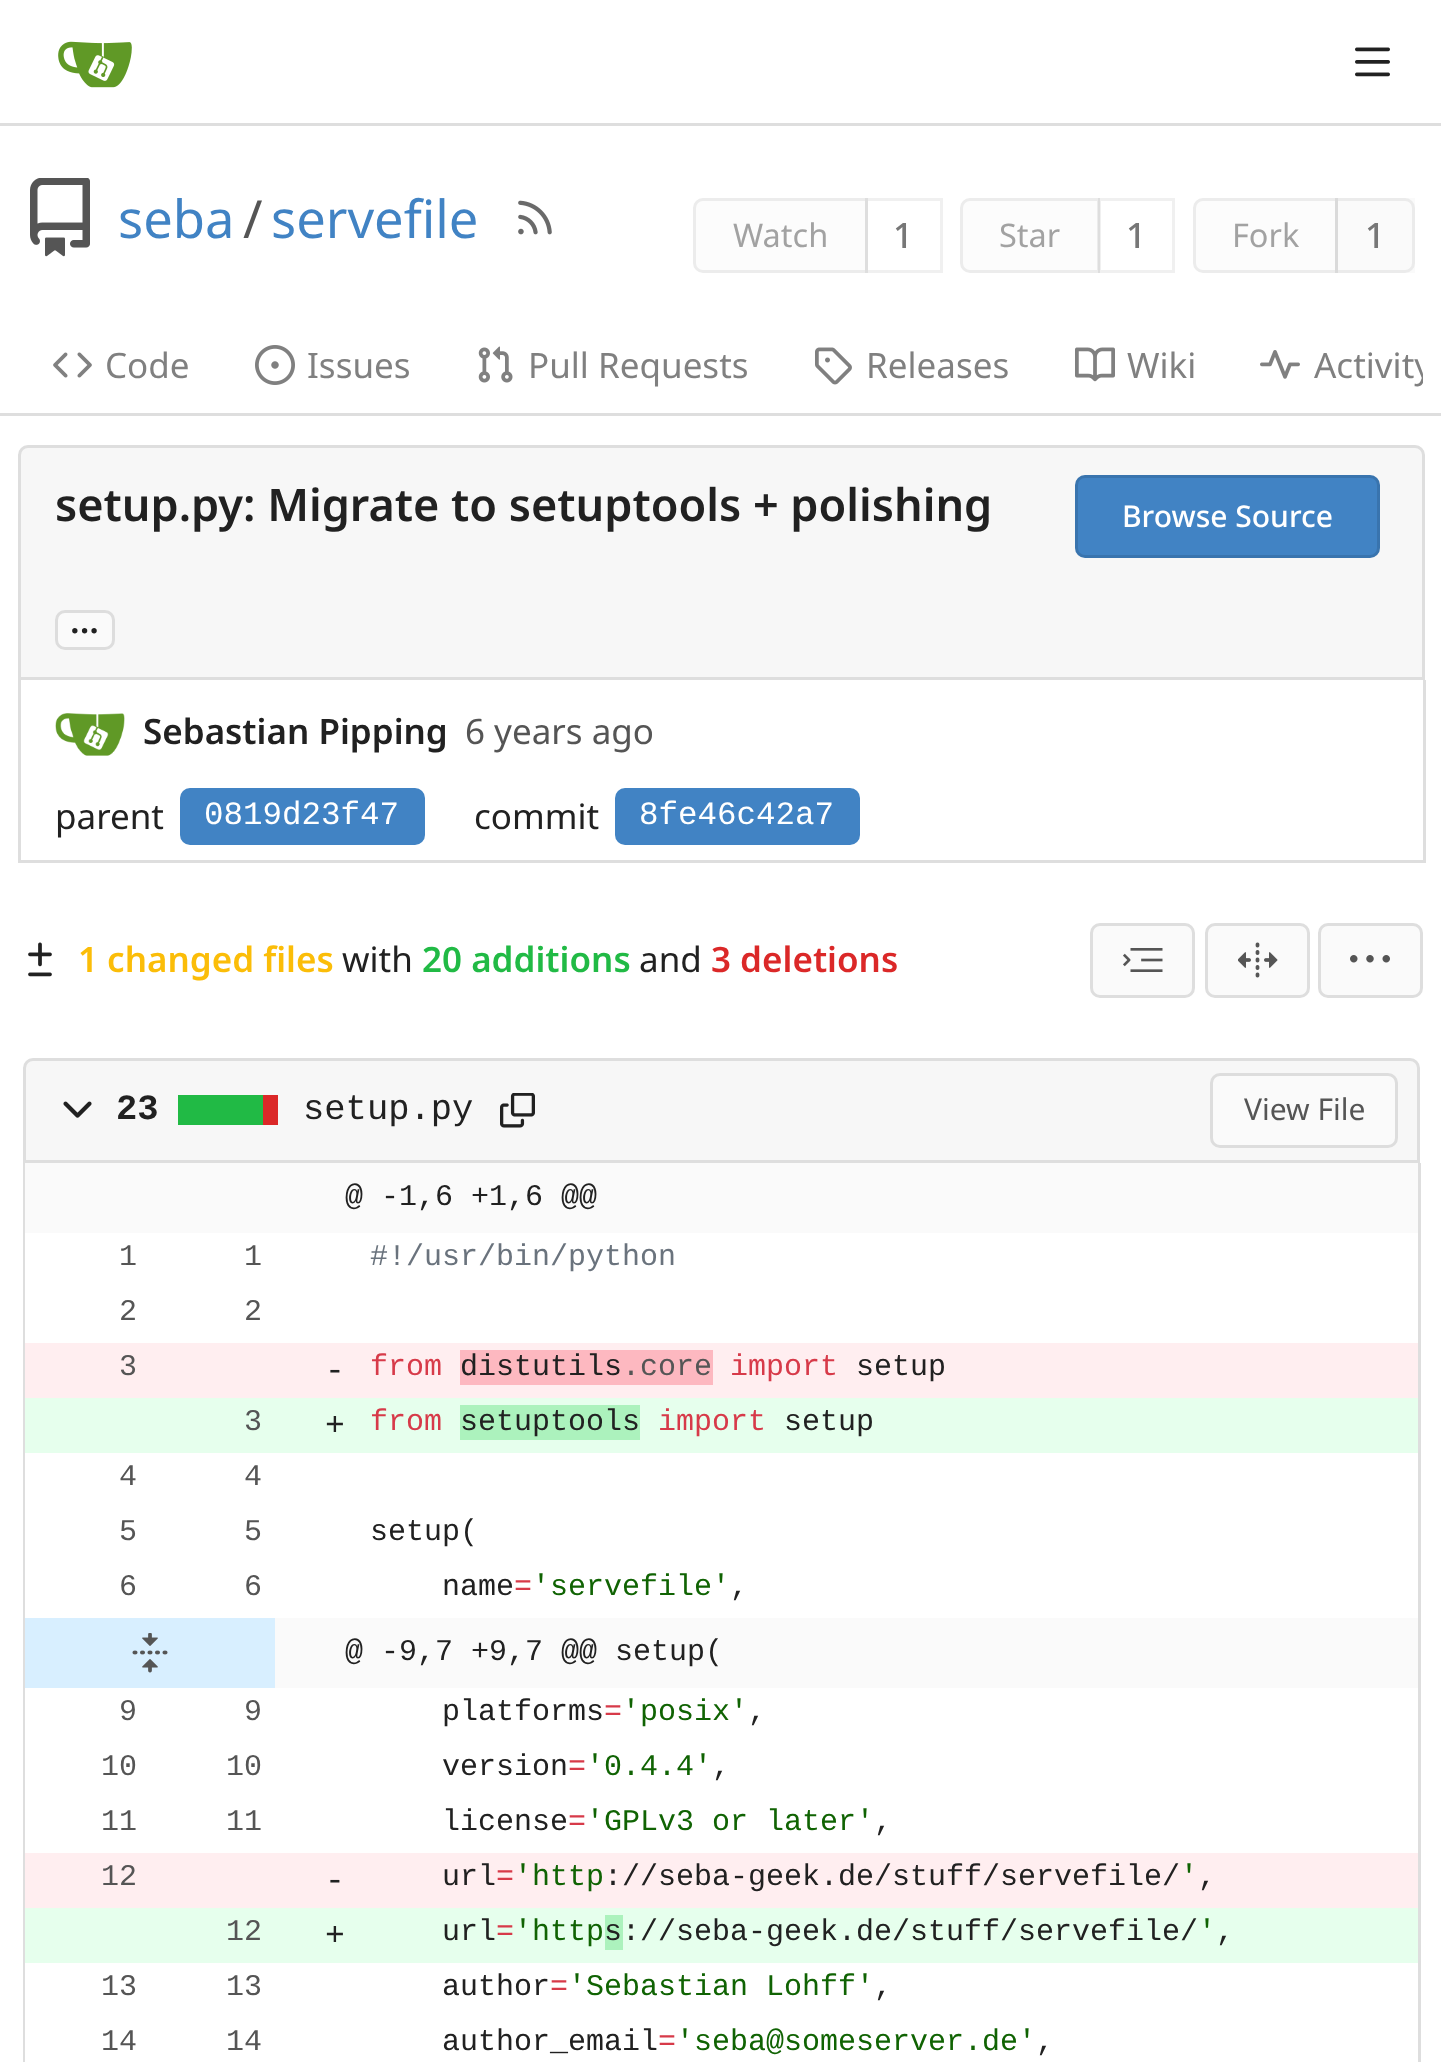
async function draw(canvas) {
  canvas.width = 1441
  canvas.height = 2062
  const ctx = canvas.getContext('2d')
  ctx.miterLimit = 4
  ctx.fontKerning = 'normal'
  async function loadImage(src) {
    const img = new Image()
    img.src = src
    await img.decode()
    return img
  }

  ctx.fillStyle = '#fff'
  ctx.fillRect(0, 0, 1441, 2062)
  ctx.fillStyle = '#dedede'
  ctx.fillRect(0, 123, 1441, 3)
  ctx.drawImage(await loadImage('image0.png'), 58, 41, 74, 47)
  ctx.drawImage(await loadImage('image1.png'), 1355, 47, 35, 30)
  ctx.drawImage(await loadImage('image2.png'), 30, 178, 60, 79)
  ctx.font = '52.5px Noto Sans'
  ctx.fillStyle = '#4183c4'
  ctx.fillText('seba', 118, 238)
  ctx.fillStyle = '#555'
  ctx.fillText('/', 243, 238)
  ctx.fillStyle = '#4183c4'
  ctx.fillText('servefile', 271, 238)
  ctx.drawImage(await loadImage('image3.png'), 518, 200, 34, 35)
  ctx.fillStyle = '#fcfcfc'
  ctx.beginPath()
  ctx.roundRect(694.5, 199.5, 172, 72, [8.5, 0, 0, 8.5])
  ctx.fill()
  ctx.strokeStyle = '#ececec'
  ctx.lineWidth = 3
  ctx.stroke()
  ctx.font = '32.5px Noto Sans'
  ctx.fillStyle = '#a2a2a2'
  ctx.fillText('Watch', 733, 247)
  ctx.strokeStyle = '#0000000f'
  ctx.strokeRect(866.5, 199.5, 75, 72)
  ctx.font = '500 35px Noto Sans'
  ctx.fillStyle = '#777'
  ctx.fillText('1', 893, 248)
  ctx.fillStyle = '#fcfcfc'
  ctx.beginPath()
  ctx.roundRect(961.5, 199.5, 137, 72, [8.5, 0, 0, 8.5])
  ctx.fill()
  ctx.strokeStyle = '#ececec'
  ctx.stroke()
  ctx.font = '32.5px Noto Sans'
  ctx.fillStyle = '#a2a2a2'
  ctx.fillText('Star', 999, 247)
  ctx.strokeStyle = '#0000000f'
  ctx.strokeRect(1099.5, 199.5, 74, 72)
  ctx.font = '500 35px Noto Sans'
  ctx.fillStyle = '#777'
  ctx.fillText('1', 1126, 248)
  ctx.fillStyle = '#fcfcfc'
  ctx.beginPath()
  ctx.roundRect(1194.5, 199.5, 142, 72, [8.5, 0, 0, 8.5])
  ctx.fill()
  ctx.strokeStyle = '#ececec'
  ctx.stroke()
  ctx.font = '32.5px Noto Sans'
  ctx.fillStyle = '#a2a2a2'
  ctx.fillText('Fork', 1232, 247)
  ctx.fillStyle = '#7373730a'
  ctx.fillRect(1335, 198, 80, 75)
  ctx.beginPath()
  ctx.roundRect(1336.5, 199.5, 77, 72, [0, 8.5, 8.5, 0])
  ctx.strokeStyle = '#7373731c'
  ctx.stroke()
  ctx.font = '500 35px Noto Sans'
  ctx.fillStyle = '#777'
  ctx.fillText('1', 1365, 248)
  ctx.drawImage(await loadImage('image4.png'), 53, 352, 39, 26)
  ctx.font = '35px Noto Sans'
  ctx.fillStyle = '#808080'
  ctx.fillText('Code', 105, 378)
  ctx.drawImage(await loadImage('image5.png'), 255, 345, 40, 40)
  ctx.fillText('Issues', 307, 378)
  ctx.drawImage(await loadImage('image6.png'), 478, 346, 35, 37)
  ctx.fillText('Pull Requests', 528, 378)
  ctx.drawImage(await loadImage('image7.png'), 815, 347, 37, 38)
  ctx.fillText('Releases', 866, 378)
  ctx.drawImage(await loadImage('image8.png'), 1075, 347, 40, 35)
  ctx.fillText('Wiki', 1127, 378)
  ctx.drawImage(await loadImage('image9.png'), 1260, 350, 40, 29)
  ctx.save()
  ctx.beginPath()
  ctx.rect(20, 308, 1403, 107)
  ctx.clip()
  ctx.fillText('Activity', 1314, 378)
  ctx.restore()
  ctx.fillStyle = '#dedede'
  ctx.fillRect(0, 413, 1441, 3)
  ctx.fillStyle = '#f7f7f7'
  ctx.beginPath()
  ctx.roundRect(19.5, 446.5, 1404, 232, [8.5, 8.5, 0, 0])
  ctx.fill()
  ctx.strokeStyle = '#dedede'
  ctx.stroke()
  ctx.font = '600 45px Noto Sans'
  ctx.fillStyle = '#212121'
  ctx.fillText('setup.py: Migrate to setuptools + polishing', 55, 521)
  ctx.fillStyle = '#4183c4'
  ctx.beginPath()
  ctx.roundRect(1075, 475, 305, 83, 10)
  ctx.fill()
  ctx.beginPath()
  ctx.roundRect(1076.5, 476.5, 302, 80, 8.5)
  ctx.strokeStyle = '#0000001c'
  ctx.stroke()
  ctx.font = '500 30px Noto Sans'
  ctx.fillStyle = '#fff'
  ctx.fillText('Browse Source', 1122, 527)
  ctx.fillStyle = '#fafafa'
  ctx.beginPath()
  ctx.roundRect(56.5, 611.5, 57, 37, 8.5)
  ctx.fill()
  ctx.strokeStyle = '#ddd'
  ctx.stroke()
  ctx.font = '600 35px Noto Sans'
  ctx.fillStyle = '#212121'
  ctx.fillText('...', 70, 633)
  ctx.fillStyle = '#dedede'
  ctx.fillRect(1423, 680, 3, 183)
  ctx.fillRect(18, 860, 1407, 3)
  ctx.fillRect(18, 680, 3, 183)
  ctx.drawImage(await loadImage('image10.png'), 55, 713, 70, 43)
  ctx.fillStyle = '#212121'
  ctx.fillText('Sebastian Pipping', 143, 744)
  ctx.font = '35px Noto Sans'
  ctx.fillStyle = '#555'
  ctx.fillText('6 years ago', 465, 744)
  ctx.fillStyle = '#212121'
  ctx.fillText('parent', 55, 829)
  ctx.fillStyle = '#4183c4'
  ctx.beginPath()
  ctx.roundRect(180, 788, 245, 57, 10)
  ctx.fill()
  ctx.font = '32.5px Liberation Mono'
  ctx.fillStyle = '#fff'
  ctx.fillText('0819d23f47', 204, 824)
  ctx.font = '35px Noto Sans'
  ctx.fillStyle = '#212121'
  ctx.fillText('commit', 474, 829)
  ctx.fillStyle = '#4183c4'
  ctx.beginPath()
  ctx.roundRect(615, 788, 245, 57, 10)
  ctx.fill()
  ctx.font = '32.5px Liberation Mono'
  ctx.fillStyle = '#fff'
  ctx.fillText('8fe46c42a7', 639, 824)
  ctx.drawImage(await loadImage('image11.png'), 28, 942, 24, 35)
  ctx.font = '600 35px Noto Sans'
  ctx.fillStyle = '#fbbd08'
  ctx.fillText('1 changed files', 78, 972)
  ctx.font = '35px Noto Sans'
  ctx.fillStyle = '#212121'
  ctx.fillText('with', 342, 972)
  ctx.font = '600 35px Noto Sans'
  ctx.fillStyle = '#21ba45'
  ctx.fillText('20 additions', 422, 972)
  ctx.font = '35px Noto Sans'
  ctx.fillStyle = '#212121'
  ctx.fillText('and', 639, 972)
  ctx.font = '600 35px Noto Sans'
  ctx.fillStyle = '#db2828'
  ctx.fillText('3 deletions', 711, 972)
  ctx.fillStyle = '#fafafa'
  ctx.beginPath()
  ctx.roundRect(1091.5, 924.5, 102, 72, 8.5)
  ctx.fill()
  ctx.strokeStyle = '#dedede'
  ctx.stroke()
  ctx.drawImage(await loadImage('image12.png'), 1123, 948, 40, 24)
  ctx.beginPath()
  ctx.roundRect(1206.5, 924.5, 102, 72, 8.5)
  ctx.fill()
  ctx.stroke()
  ctx.drawImage(await loadImage('image13.png'), 1238, 942, 40, 36)
  ctx.beginPath()
  ctx.roundRect(1319.5, 924.5, 102, 72, 8.5)
  ctx.fill()
  ctx.stroke()
  ctx.drawImage(await loadImage('image14.png'), 1350, 955, 40, 8)
  ctx.fillStyle = '#f7f7f7'
  ctx.beginPath()
  ctx.roundRect(24.5, 1059.5, 1394, 102, [8.5, 8.5, 0, 0])
  ctx.fill()
  ctx.stroke()
  ctx.drawImage(await loadImage('image15.png'), 63, 1101, 29, 17)
  ctx.font = 'bold 35.5px Liberation Mono'
  ctx.fillStyle = '#212121'
  ctx.fillText('23', 116, 1119)
  ctx.fillStyle = '#db2828'
  ctx.fillRect(263, 1095, 15, 30)
  ctx.fillStyle = '#21ba45'
  ctx.fillRect(178, 1095, 85, 30)
  ctx.font = '35.5px Liberation Mono'
  ctx.fillStyle = '#212121'
  ctx.fillText('setup.py', 303, 1119)
  ctx.drawImage(await loadImage('image16.png'), 500, 1093, 35, 35)
  ctx.fillStyle = '#fafafa'
  ctx.beginPath()
  ctx.roundRect(1211.5, 1074.5, 185, 72, 8.5)
  ctx.fill()
  ctx.strokeStyle = '#ddd'
  ctx.stroke()
  ctx.font = '30px Noto Sans'
  ctx.fillStyle = '#555'
  ctx.fillText('View File', 1244, 1120)
  ctx.fillStyle = '#dedede'
  ctx.fillRect(1418, 1163, 3, 899)
  ctx.fillRect(23, 1163, 2, 899)
  ctx.fillStyle = '#fafafa'
  ctx.fillRect(25, 1163, 1393, 70)
  ctx.font = '30px Liberation Mono'
  ctx.fillStyle = '#212121'
  ctx.fillText('@ -1,6 +1,6 @@', 345, 1205)
  ctx.fillStyle = '#555'
  ctx.fillText('1', 119, 1265)
  ctx.fillText('1', 244, 1265)
  ctx.fillStyle = '#6a737d'
  ctx.fillText('#!/usr/bin/python', 370, 1265)
  ctx.fillStyle = '#555'
  ctx.fillText('2', 119, 1320)
  ctx.fillText('2', 244, 1320)
  ctx.fillStyle = '#ffeef0'
  ctx.fillRect(25, 1343, 1393, 55)
  ctx.fillStyle = '#555'
  ctx.fillText('3', 119, 1375)
  ctx.font = '33px Liberation Mono'
  ctx.fillStyle = '#212121'
  ctx.fillText('-', 325, 1380)
  ctx.font = '30px Liberation Mono'
  ctx.fillStyle = '#d73a49'
  ctx.fillText('from', 370, 1375)
  ctx.fillStyle = '#fdb8c0'
  ctx.fillRect(460, 1350, 253, 35)
  ctx.fillStyle = '#212121'
  ctx.fillText('distutils', 460, 1375)
  ctx.fillStyle = '#555'
  ctx.fillText('.core', 622, 1375)
  ctx.fillStyle = '#d73a49'
  ctx.fillText('import', 730, 1375)
  ctx.fillStyle = '#212121'
  ctx.fillText('setup', 856, 1375)
  ctx.fillStyle = '#e6ffed'
  ctx.fillRect(25, 1398, 1393, 55)
  ctx.fillStyle = '#555'
  ctx.fillText('3', 244, 1430)
  ctx.font = '33px Liberation Mono'
  ctx.fillStyle = '#212121'
  ctx.fillText('+', 325, 1435)
  ctx.font = '30px Liberation Mono'
  ctx.fillStyle = '#d73a49'
  ctx.fillText('from', 370, 1430)
  ctx.fillStyle = '#acf2bd'
  ctx.fillRect(460, 1405, 180, 35)
  ctx.fillStyle = '#212121'
  ctx.fillText('setuptools', 460, 1430)
  ctx.fillStyle = '#d73a49'
  ctx.fillText('import', 658, 1430)
  ctx.fillStyle = '#212121'
  ctx.fillText('setup', 784, 1430)
  ctx.fillStyle = '#555'
  ctx.fillText('4', 119, 1485)
  ctx.fillText('4', 244, 1485)
  ctx.fillText('5', 119, 1540)
  ctx.fillText('5', 244, 1540)
  ctx.fillStyle = '#212121'
  ctx.fillText('setup(', 370, 1540)
  ctx.fillStyle = '#555'
  ctx.fillText('6', 119, 1595)
  ctx.fillText('6', 244, 1595)
  ctx.fillStyle = '#212121'
  ctx.fillText('name', 442, 1595)
  ctx.fillStyle = '#d73a49'
  ctx.fillText('=', 514, 1595)
  ctx.fillStyle = '#106303'
  ctx.fillText('\'servefile\'', 532, 1595)
  ctx.fillStyle = '#212121'
  ctx.fillText(',', 730, 1595)
  ctx.fillStyle = '#fafafa'
  ctx.fillRect(275, 1618, 1143, 70)
  ctx.fillStyle = '#d8efff'
  ctx.fillRect(25, 1618, 250, 70)
  ctx.drawImage(await loadImage('image17.png'), 132, 1633, 36, 40)
  ctx.fillStyle = '#212121'
  ctx.fillText('@ -9,7 +9,7 @@ setup(', 345, 1660)
  ctx.fillStyle = '#555'
  ctx.fillText('9', 119, 1720)
  ctx.fillText('9', 244, 1720)
  ctx.fillStyle = '#212121'
  ctx.fillText('platforms', 442, 1720)
  ctx.fillStyle = '#d73a49'
  ctx.fillText('=', 604, 1720)
  ctx.fillStyle = '#106303'
  ctx.fillText('\'posix\'', 622, 1720)
  ctx.fillStyle = '#212121'
  ctx.fillText(',', 748, 1720)
  ctx.fillStyle = '#555'
  ctx.fillText('10', 101, 1775)
  ctx.fillText('10', 226, 1775)
  ctx.fillStyle = '#212121'
  ctx.fillText('version', 442, 1775)
  ctx.fillStyle = '#d73a49'
  ctx.fillText('=', 568, 1775)
  ctx.fillStyle = '#106303'
  ctx.fillText('\'0.4.4\'', 586, 1775)
  ctx.fillStyle = '#212121'
  ctx.fillText(',', 712, 1775)
  ctx.fillStyle = '#555'
  ctx.fillText('11', 101, 1830)
  ctx.fillText('11', 226, 1830)
  ctx.fillStyle = '#212121'
  ctx.fillText('license', 442, 1830)
  ctx.fillStyle = '#d73a49'
  ctx.fillText('=', 568, 1830)
  ctx.fillStyle = '#106303'
  ctx.fillText('\'GPLv3 or later\'', 586, 1830)
  ctx.fillStyle = '#212121'
  ctx.fillText(',', 874, 1830)
  ctx.fillStyle = '#ffeef0'
  ctx.fillRect(25, 1853, 1393, 55)
  ctx.fillStyle = '#555'
  ctx.fillText('12', 101, 1885)
  ctx.font = '33px Liberation Mono'
  ctx.fillStyle = '#212121'
  ctx.fillText('-', 325, 1890)
  ctx.font = '30px Liberation Mono'
  ctx.fillText('url', 442, 1885)
  ctx.fillStyle = '#106303'
  ctx.fillText('\'http', 514, 1885)
  ctx.fillStyle = '#212121'
  ctx.fillText('://seba-geek.de/stuff/servefile/ ,', 604, 1885)
  ctx.fillStyle = '#106303'
  ctx.fillText('\'', 1180, 1885)
  ctx.fillStyle = '#d73a49'
  ctx.fillText('=', 496, 1885)
  ctx.fillStyle = '#e6ffed'
  ctx.fillRect(25, 1908, 1393, 55)
  ctx.fillStyle = '#555'
  ctx.fillText('12', 226, 1940)
  ctx.font = '33px Liberation Mono'
  ctx.fillStyle = '#212121'
  ctx.fillText('+', 325, 1945)
  ctx.font = '30px Liberation Mono'
  ctx.fillText('url', 442, 1940)
  ctx.fillStyle = '#106303'
  ctx.fillText('\'http', 514, 1940)
  ctx.fillStyle = '#acf2bd'
  ctx.fillRect(605, 1915, 18, 35)
  ctx.fillStyle = '#212121'
  ctx.fillText('s://seba-geek.de/stuff/servefile/ ,', 604, 1940)
  ctx.fillStyle = '#106303'
  ctx.fillText('\'', 1198, 1940)
  ctx.fillStyle = '#d73a49'
  ctx.fillText('=', 496, 1940)
  ctx.fillStyle = '#555'
  ctx.fillText('13', 101, 1995)
  ctx.fillText('13', 226, 1995)
  ctx.fillStyle = '#212121'
  ctx.fillText('author', 442, 1995)
  ctx.fillStyle = '#d73a49'
  ctx.fillText('=', 550, 1995)
  ctx.fillStyle = '#106303'
  ctx.fillText('\'Sebastian Lohff\'', 568, 1995)
  ctx.fillStyle = '#212121'
  ctx.fillText(',', 874, 1995)
  ctx.fillStyle = '#555'
  ctx.fillText('14', 101, 2050)
  ctx.fillText('14', 226, 2050)
  ctx.fillStyle = '#212121'
  ctx.fillText('author_email', 442, 2050)
  ctx.fillStyle = '#d73a49'
  ctx.fillText('=', 658, 2050)
  ctx.fillStyle = '#106303'
  ctx.fillText('\'seba@someserver.de\'', 676, 2050)
  ctx.fillStyle = '#212121'
  ctx.fillText(',', 1036, 2050)
}

draw(document.querySelector('canvas'))
